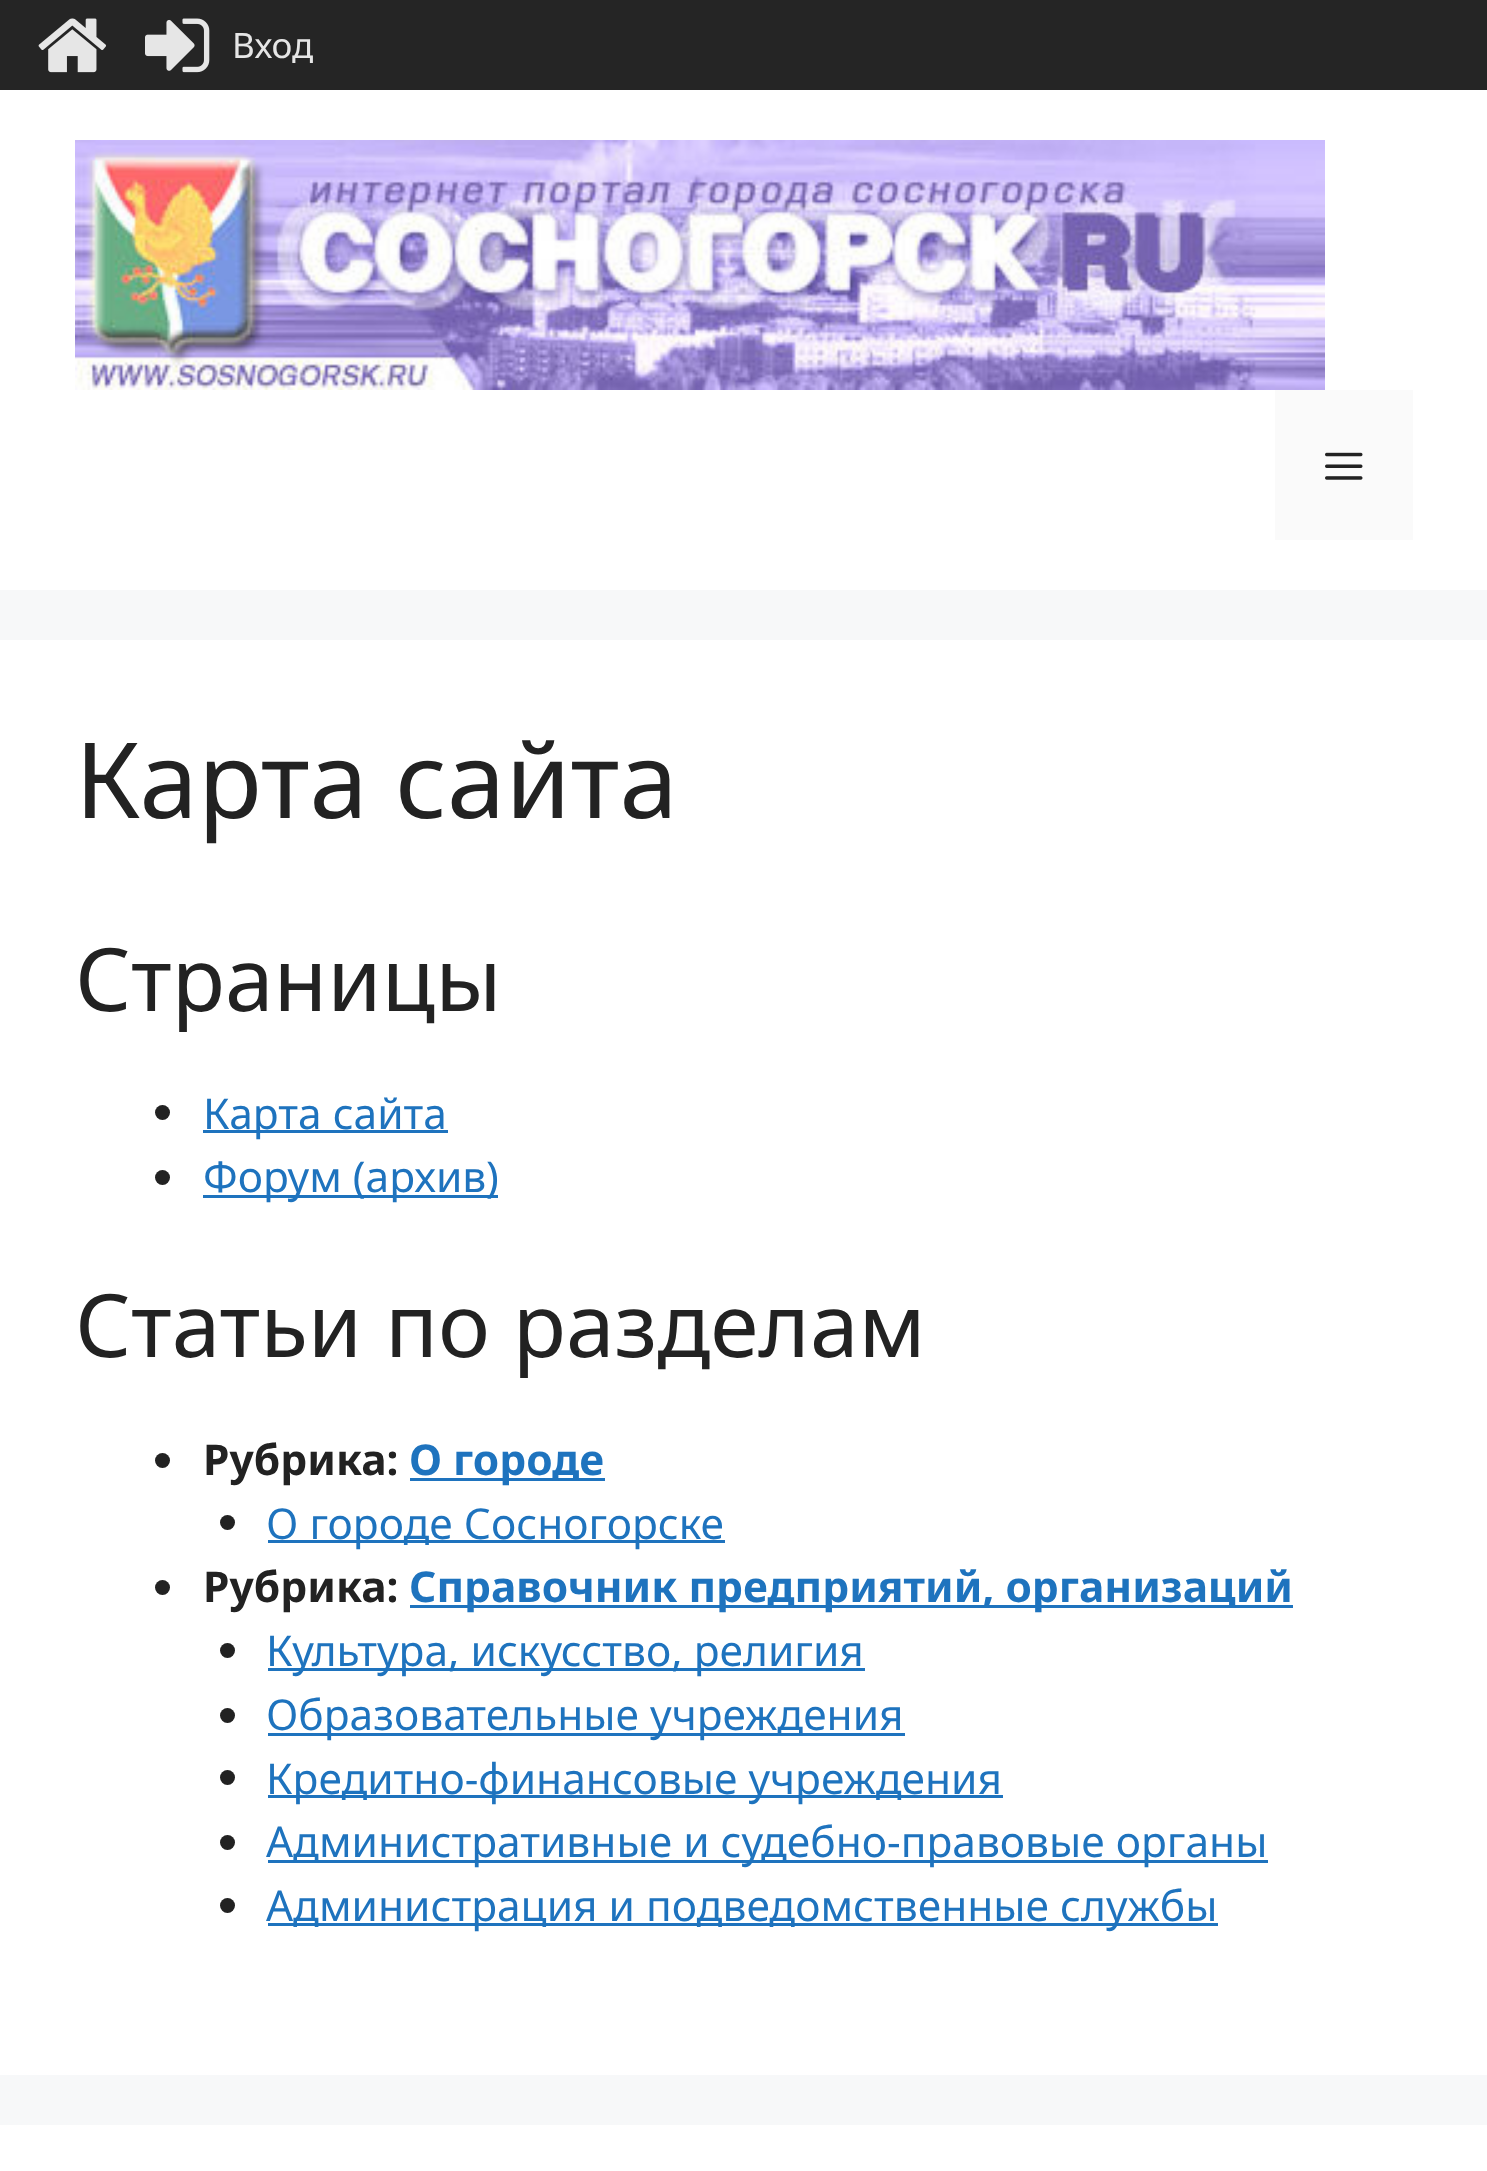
async function draw(canvas) {
  canvas.width = 1487
  canvas.height = 2171
  const ctx = canvas.getContext('2d')
  ctx.miterLimit = 4
  ctx.fontKerning = 'normal'
  async function loadImage(src) {
    const img = new Image()
    img.src = src
    await img.decode()
    return img
  }

  ctx.fillStyle = '#f7f8f9'
  ctx.fillRect(0, 0, 1487, 2171)
  ctx.fillStyle = '#252525'
  ctx.fillRect(0, 0, 1487, 90)
  ctx.drawImage(await loadImage('image0.png'), 38, 18, 69, 55)
  ctx.drawImage(await loadImage('image1.png'), 145, 18, 65, 55)
  ctx.font = '35px Noto Sans'
  ctx.fillStyle = '#e6e6e6'
  ctx.fillText('Вход', 232, 58)
  ctx.fillStyle = '#fff'
  ctx.fillRect(0, 90, 1487, 500)
  ctx.drawImage(await loadImage('image2.png'), 75, 140, 1250, 250)
  ctx.fillStyle = '#fafafa'
  ctx.fillRect(1275, 390, 138, 150)
  ctx.drawImage(await loadImage('image3.png'), 1325, 452, 38, 28)
  ctx.fillStyle = '#fff'
  ctx.fillRect(0, 640, 1487, 1435)
  ctx.font = '105px Noto Sans'
  ctx.fillStyle = '#222'
  ctx.fillText('Карта сайта', 75, 818)
  ctx.font = '87.5px Noto Sans'
  ctx.fillText('Страницы', 75, 1011)
  ctx.beginPath()
  ctx.arc(162.5, 1112.5, 7.5, 0, 2 * Math.PI)
  ctx.fill()
  ctx.fillStyle = '#1e73be'
  ctx.fillRect(203, 1130, 245, 3)
  ctx.font = '42.5px Noto Sans'
  ctx.fillText('Карта сайта', 203, 1129)
  ctx.fillStyle = '#222'
  ctx.beginPath()
  ctx.arc(162.5, 1177.5, 7.5, 0, 2 * Math.PI)
  ctx.fill()
  ctx.fillStyle = '#1e73be'
  ctx.fillRect(203, 1195, 295, 3)
  ctx.fillText('Форум (архив)', 203, 1192)
  ctx.font = '87.5px Noto Sans'
  ctx.fillStyle = '#222'
  ctx.fillText('Статьи по разделам', 75, 1357)
  ctx.beginPath()
  ctx.arc(162.5, 1460.5, 7.5, 0, 2 * Math.PI)
  ctx.fill()
  ctx.font = 'bold 42.5px Noto Sans'
  ctx.fillText('Рубрика:', 203, 1475)
  ctx.fillStyle = '#1e73be'
  ctx.fillRect(410, 1478, 195, 3)
  ctx.fillText('О городе', 409, 1475)
  ctx.fillStyle = '#222'
  ctx.beginPath()
  ctx.arc(227.5, 1522.5, 7.5, 0, 2 * Math.PI)
  ctx.fill()
  ctx.fillStyle = '#1e73be'
  ctx.fillRect(268, 1540, 457, 3)
  ctx.font = '42.5px Noto Sans'
  ctx.fillText('О городе Сосногорске', 266, 1539)
  ctx.fillStyle = '#222'
  ctx.beginPath()
  ctx.arc(162.5, 1587.5, 7.5, 0, 2 * Math.PI)
  ctx.fill()
  ctx.font = 'bold 42.5px Noto Sans'
  ctx.fillText('Рубрика:', 203, 1602)
  ctx.fillStyle = '#1e73be'
  ctx.fillRect(410, 1605, 883, 3)
  ctx.fillText('Справочник предприятий, организаций', 409, 1602)
  ctx.fillStyle = '#222'
  ctx.beginPath()
  ctx.arc(227.5, 1650.5, 7.5, 0, 2 * Math.PI)
  ctx.fill()
  ctx.fillStyle = '#1e73be'
  ctx.fillRect(268, 1668, 597, 3)
  ctx.font = '42.5px Noto Sans'
  ctx.fillText('Культура, искусство, религия', 266, 1666)
  ctx.fillStyle = '#222'
  ctx.beginPath()
  ctx.arc(227.5, 1715.5, 7.5, 0, 2 * Math.PI)
  ctx.fill()
  ctx.fillStyle = '#1e73be'
  ctx.fillRect(268, 1733, 637, 3)
  ctx.fillText('Образовательные учреждения', 266, 1730)
  ctx.fillStyle = '#222'
  ctx.beginPath()
  ctx.arc(227.5, 1777.5, 7.5, 0, 2 * Math.PI)
  ctx.fill()
  ctx.fillStyle = '#1e73be'
  ctx.fillRect(268, 1795, 735, 3)
  ctx.fillText('Кредитно-финансовые учреждения', 266, 1794)
  ctx.fillStyle = '#222'
  ctx.beginPath()
  ctx.arc(227.5, 1842.5, 7.5, 0, 2 * Math.PI)
  ctx.fill()
  ctx.fillStyle = '#1e73be'
  ctx.fillRect(268, 1860, 1000, 3)
  ctx.fillText('Административные и судебно-правовые органы', 266, 1857)
  ctx.fillStyle = '#222'
  ctx.beginPath()
  ctx.arc(227.5, 1905.5, 7.5, 0, 2 * Math.PI)
  ctx.fill()
  ctx.fillStyle = '#1e73be'
  ctx.fillRect(268, 1923, 950, 3)
  ctx.fillText('Администрация и подведомственные службы', 266, 1921)
  ctx.fillStyle = '#fff'
  ctx.fillRect(0, 2125, 1487, 46)
}

draw(document.querySelector('canvas'))
